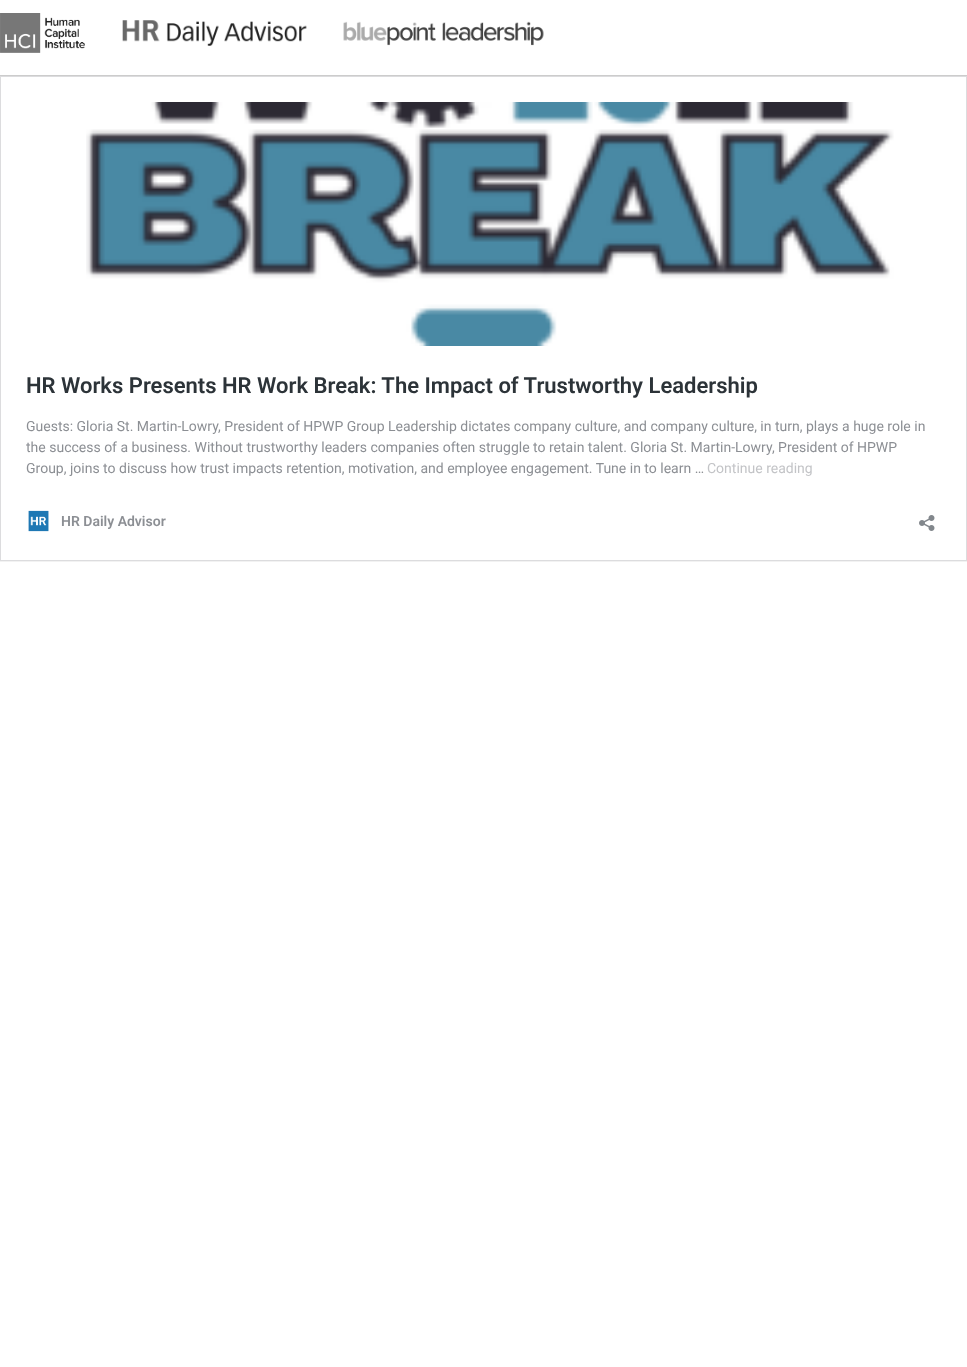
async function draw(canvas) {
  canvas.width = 967
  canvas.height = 1367
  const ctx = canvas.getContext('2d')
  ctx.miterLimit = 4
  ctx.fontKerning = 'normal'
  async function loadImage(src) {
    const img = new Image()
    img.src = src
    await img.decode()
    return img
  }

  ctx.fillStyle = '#fff'
  ctx.fillRect(0, 0, 967, 1367)
  ctx.fillStyle = '#ccc'
  ctx.fillRect(0, 75, 967, 1)
  ctx.drawImage(await loadImage('image0.png'), 0, 13, 85, 40)
  ctx.drawImage(await loadImage('image1.png'), 122, 20, 185, 26)
  ctx.drawImage(await loadImage('image2.png'), 343, 21, 201, 25)
  ctx.save()
  ctx.beginPath()
  ctx.rect(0, 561, 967, 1)
  ctx.clip()
  ctx.fillStyle = '#0000000d'
  ctx.filter = 'blur(0.5px)'
  ctx.beginPath()
  ctx.rect(0, 77, 967, 485)
  ctx.fill()
  ctx.filter = 'none'
  ctx.restore()
  ctx.strokeStyle = '#dcdcde'
  ctx.strokeRect(0.5, 76.5, 966, 484)
  ctx.drawImage(await loadImage('image3.png'), 86, 102, 808, 244)
  ctx.font = '600 22px Roboto'
  ctx.fillStyle = '#2c3338'
  ctx.fillText('HR Works Presents HR Work Break: The Impact of Trustworthy Leadership', 26, 393)
  ctx.font = '14px Roboto'
  ctx.fillStyle = '#8c8f94'
  ctx.fillText('Guests: Gloria St. Martin-Lowry, President of HPWP Group Leadership dictates company culture, and company culture, in turn, plays a huge role in', 26, 431)
  ctx.fillText('the success of a business. Without trustworthy leaders companies often struggle to retain talent. Gloria St. Martin-Lowry, President of HPWP', 26, 452)
  ctx.fillText('Group, joins to discuss how trust impacts retention, motivation, and employee engagement. Tune in to learn …', 26, 473)
  ctx.fillStyle = '#c3c4c7'
  ctx.fillText('Continue reading', 707, 473)
  ctx.drawImage(await loadImage('image4.png'), 28, 510, 21, 22)
  ctx.font = '600 14px Roboto'
  ctx.fillStyle = '#8c8f94'
  ctx.fillText('HR Daily Advisor', 61, 526)
  ctx.drawImage(await loadImage('image5.png'), 919, 515, 16, 16)
}

draw(document.querySelector('canvas'))
